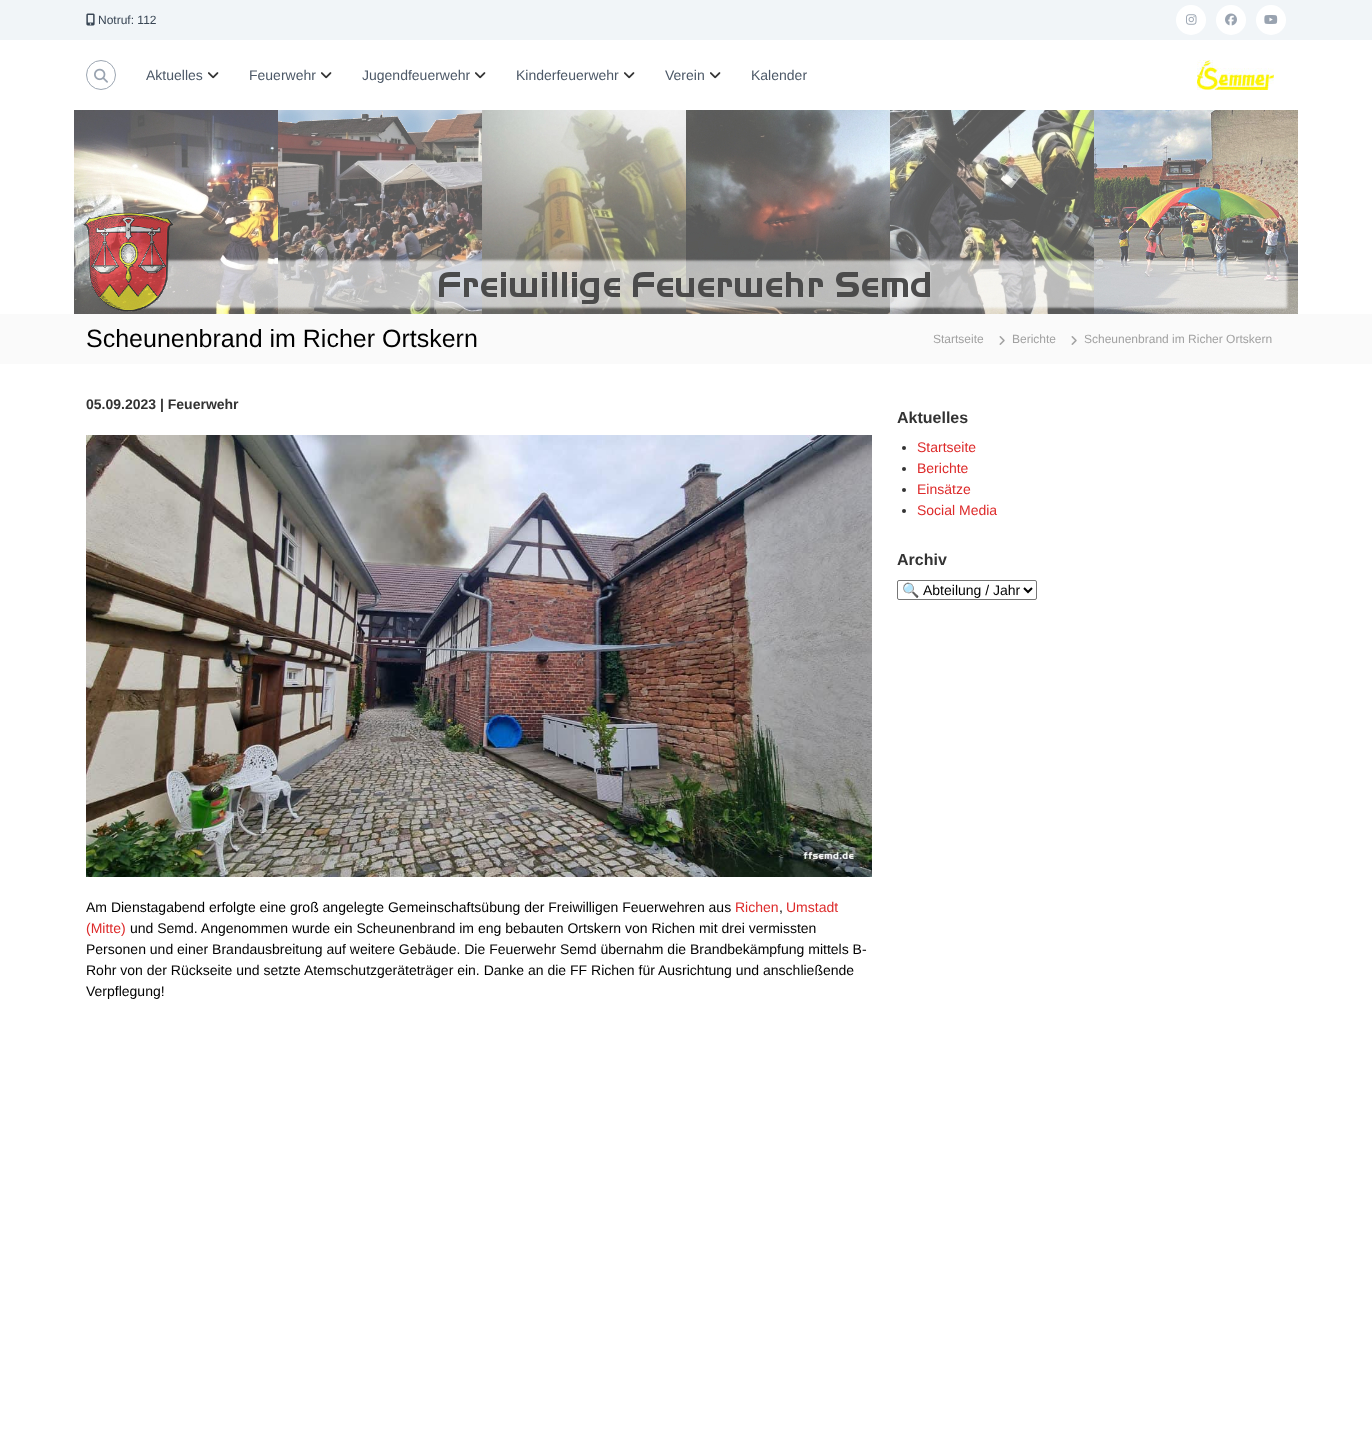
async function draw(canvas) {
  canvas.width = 1372
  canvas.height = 1446
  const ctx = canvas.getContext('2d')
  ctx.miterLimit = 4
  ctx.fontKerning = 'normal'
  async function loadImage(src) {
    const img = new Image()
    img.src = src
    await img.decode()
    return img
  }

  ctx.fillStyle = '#fff'
  ctx.fillRect(0, 0, 1372, 1446)
  ctx.fillStyle = '#f1f5f8'
  ctx.fillRect(0, 0, 1372, 40)
  ctx.drawImage(await loadImage('image0.png'), 86, 13, 9, 13)
  ctx.font = '12px Liberation Sans'
  ctx.fillStyle = '#384554'
  ctx.fillText('Notruf: 112', 98, 24)
  ctx.fillStyle = '#fff'
  ctx.beginPath()
  ctx.arc(1191, 20, 15, 0, 2 * Math.PI)
  ctx.fill()
  ctx.drawImage(await loadImage('image1.png'), 1186, 14, 11, 11)
  ctx.beginPath()
  ctx.arc(1231, 20, 15, 0, 2 * Math.PI)
  ctx.fill()
  ctx.drawImage(await loadImage('image2.png'), 1225, 13, 12, 13)
  ctx.beginPath()
  ctx.arc(1271, 20, 15, 0, 2 * Math.PI)
  ctx.fill()
  ctx.drawImage(await loadImage('image3.png'), 1264, 15, 14, 9)
  ctx.beginPath()
  ctx.arc(101, 75, 14.5, 0, 2 * Math.PI)
  ctx.strokeStyle = '#9ca6b2'
  ctx.stroke()
  ctx.drawImage(await loadImage('image4.png'), 94, 68, 14, 15)
  ctx.font = '14px Liberation Sans'
  ctx.fillStyle = '#4c5867'
  ctx.fillText('Aktuelles', 146, 80)
  ctx.drawImage(await loadImage('image5.png'), 208, 72, 11, 7)
  ctx.fillText('Feuerwehr', 249, 80)
  ctx.drawImage(await loadImage('image5.png'), 321, 72, 11, 7)
  ctx.fillText('Jugendfeuerwehr', 362, 80)
  ctx.drawImage(await loadImage('image5.png'), 475, 72, 11, 7)
  ctx.fillText('Kinderfeuerwehr', 516, 80)
  ctx.drawImage(await loadImage('image5.png'), 624, 72, 11, 7)
  ctx.fillText('Verein', 665, 80)
  ctx.drawImage(await loadImage('image5.png'), 710, 72, 11, 7)
  ctx.fillText('Kalender', 751, 80)
  ctx.drawImage(await loadImage('image6.png'), 1197, 60, 77, 30)
  ctx.drawImage(await loadImage('image7.png'), 74, 110, 1224, 204)
  ctx.fillStyle = '#fafafa'
  ctx.fillRect(0, 314, 1372, 50)
  ctx.font = '25px Liberation Sans'
  ctx.fillStyle = '#000'
  ctx.fillText('Scheunenbrand im Richer Ortskern', 86, 347)
  ctx.font = '12px Liberation Sans'
  ctx.fillStyle = '#a1a1a1'
  ctx.fillText('Startseite', 933, 343)
  ctx.drawImage(await loadImage('image8.png'), 999, 336, 6, 9)
  ctx.fillText('Berichte', 1012, 343)
  ctx.drawImage(await loadImage('image8.png'), 1071, 336, 6, 9)
  ctx.fillText('Scheunenbrand im Richer Ortskern', 1084, 343)
  ctx.font = 'bold 14px Liberation Sans'
  ctx.fillStyle = '#333'
  ctx.fillText('05.09.2023 | Feuerwehr', 86, 409)
  ctx.drawImage(await loadImage('image9.png'), 86, 435, 786, 442)
  ctx.font = '14px Liberation Sans'
  ctx.fillStyle = '#000'
  ctx.fillText('Am Dienstagabend erfolgte eine groß angelegte Gemeinschaftsübung der Freiwilligen Feuerwehren aus', 86, 912)
  ctx.fillStyle = '#dd2a2a'
  ctx.fillText('Richen', 735, 912)
  ctx.fillStyle = '#000'
  ctx.fillText(',', 779, 912)
  ctx.fillStyle = '#dd2a2a'
  ctx.fillText('Umstadt', 786, 912)
  ctx.fillText('(Mitte)', 86, 933)
  ctx.fillStyle = '#000'
  ctx.fillText('und Semd. Angenommen wurde ein Scheunenbrand im eng bebauten Ortskern von Richen mit drei vermissten', 130, 933)
  ctx.fillText('Personen und einer Brandausbreitung auf weitere Gebäude. Die Feuerwehr Semd übernahm die Brandbekämpfung mittels B-', 86, 954)
  ctx.fillText('Rohr von der Rückseite und setzte Atemschutzgeräteträger ein. Danke an die FF Richen für Ausrichtung und anschließende', 86, 975)
  ctx.fillText('Verpflegung!', 86, 996)
  ctx.font = 'bold 16px Liberation Sans'
  ctx.fillStyle = '#333'
  ctx.fillText('Aktuelles', 897, 423)
  ctx.beginPath()
  ctx.arc(904, 448, 2, 0, 2 * Math.PI)
  ctx.fill()
  ctx.font = '14px Liberation Sans'
  ctx.fillStyle = '#dd2a2a'
  ctx.fillText('Startseite', 917, 452)
  ctx.fillStyle = '#333'
  ctx.beginPath()
  ctx.arc(904, 469, 2, 0, 2 * Math.PI)
  ctx.fill()
  ctx.fillStyle = '#dd2a2a'
  ctx.fillText('Berichte', 917, 473)
  ctx.fillStyle = '#333'
  ctx.beginPath()
  ctx.arc(904, 490, 2, 0, 2 * Math.PI)
  ctx.fill()
  ctx.fillStyle = '#dd2a2a'
  ctx.fillText('Einsätze', 917, 494)
  ctx.fillStyle = '#333'
  ctx.beginPath()
  ctx.arc(904, 511, 2, 0, 2 * Math.PI)
  ctx.fill()
  ctx.fillStyle = '#dd2a2a'
  ctx.fillText('Social Media', 917, 515)
  ctx.font = 'bold 16px Liberation Sans'
  ctx.fillStyle = '#333'
  ctx.fillText('Archiv', 897, 565)
  ctx.beginPath()
  ctx.roundRect(897.5, 580.5, 139, 19, 1.5)
  ctx.strokeStyle = '#767676'
  ctx.stroke()
  ctx.beginPath()
  ctx.moveTo(1024, 588)
  ctx.lineTo(1028, 592)
  ctx.lineTo(1032, 588)
  ctx.strokeStyle = '#000'
  ctx.lineWidth = 2
  ctx.stroke()
  ctx.font = '14px Noto Color Emoji'
  ctx.fillStyle = '#000'
  ctx.fillText('🔍', 902, 595)
  ctx.font = '14px Liberation Sans'
  ctx.fillText('Abteilung / Jahr', 923, 595)
}

draw(document.querySelector('canvas'))
